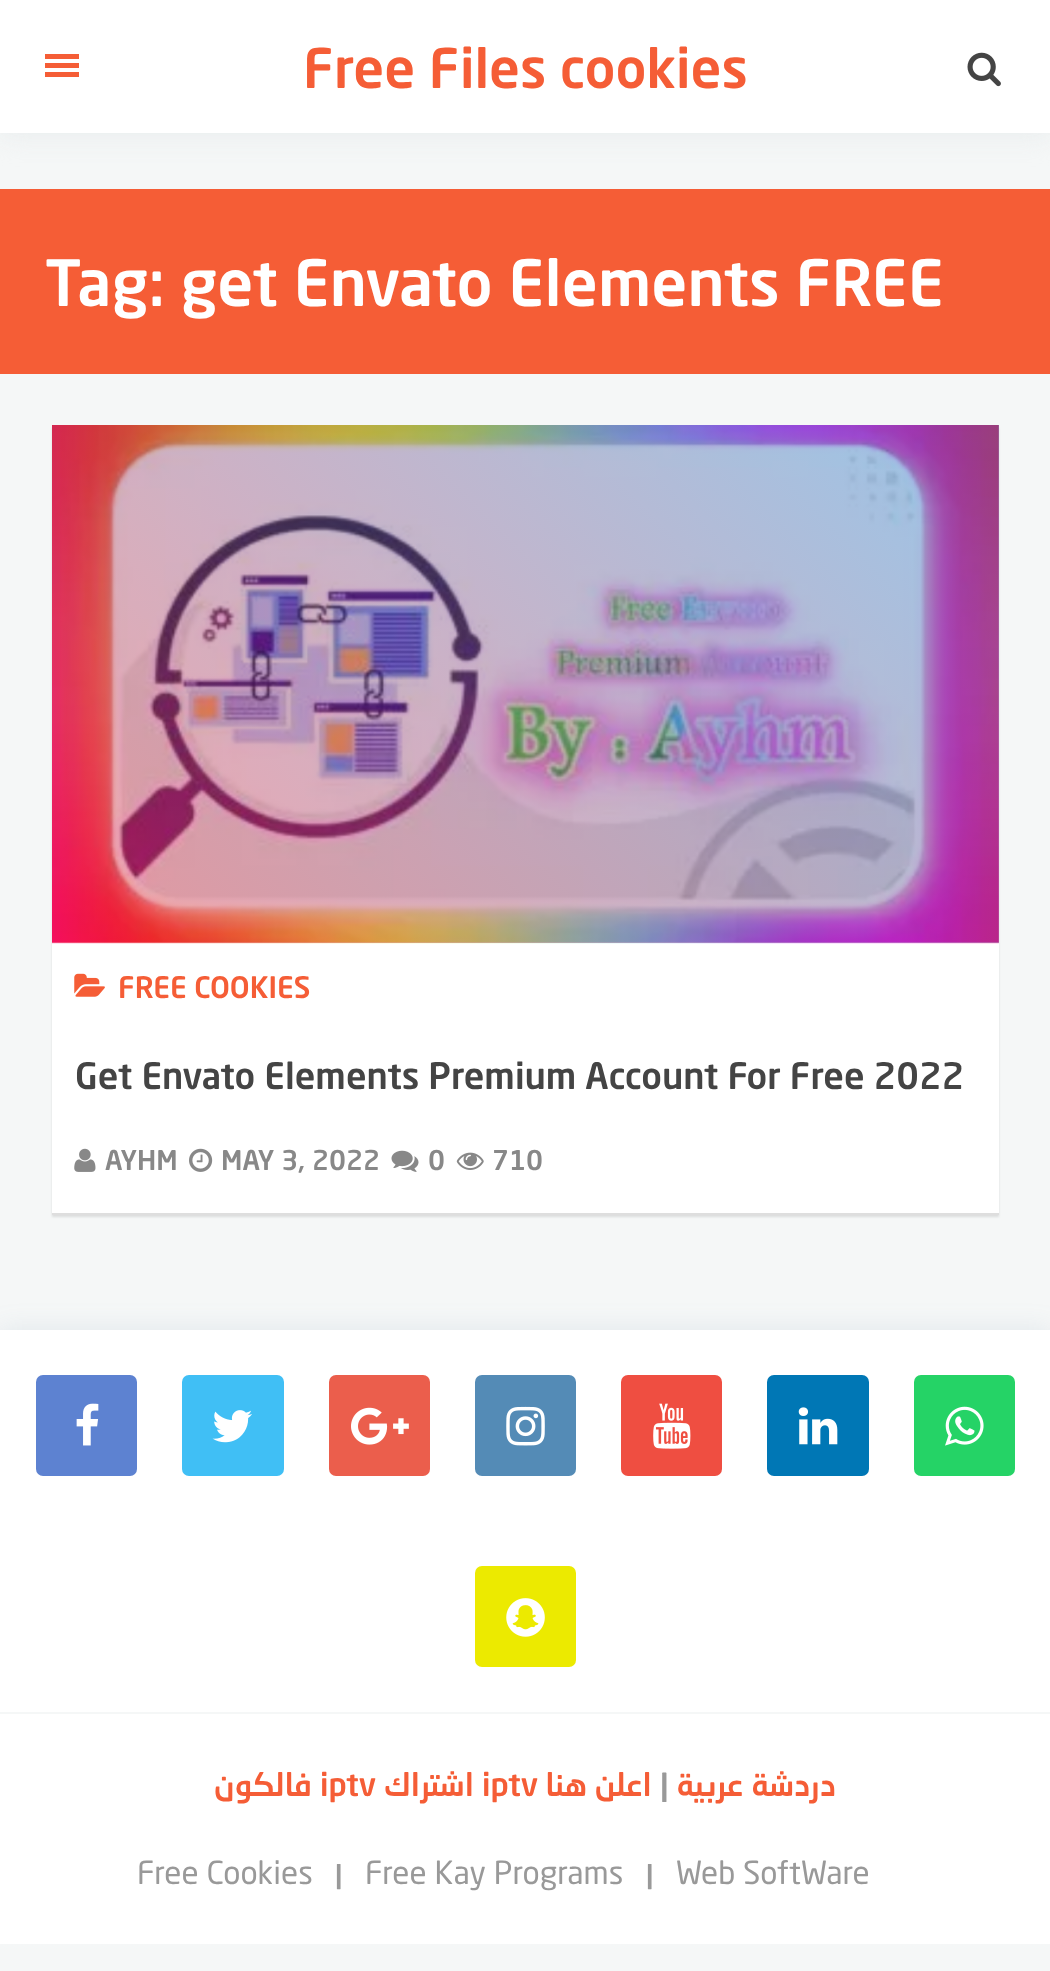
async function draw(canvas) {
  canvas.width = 1050
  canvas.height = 1971
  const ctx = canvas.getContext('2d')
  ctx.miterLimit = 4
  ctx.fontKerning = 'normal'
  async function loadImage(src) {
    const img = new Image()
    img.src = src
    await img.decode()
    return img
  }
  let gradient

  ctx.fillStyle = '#f5f7f7'
  ctx.fillRect(0, 0, 1050, 1971)
  ctx.fillStyle = '#e8eced'
  ctx.filter = 'blur(13.5px)'
  ctx.beginPath()
  ctx.rect(0, 2, 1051, 133)
  ctx.fill()
  ctx.filter = 'none'
  ctx.fillStyle = '#fff'
  ctx.fillRect(0, 0, 1050, 133)
  ctx.fillStyle = '#f55d36'
  ctx.fillRect(45, 54, 34, 5)
  ctx.fillRect(45, 63, 34, 5)
  ctx.fillRect(45, 72, 34, 5)
  ctx.font = '500 54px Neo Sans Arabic'
  ctx.fillText('Free Files cookies', 303, 88)
  ctx.drawImage(await loadImage('image0.png'), 967, 52, 34, 35)
  ctx.fillRect(0, 189, 1050, 185)
  ctx.font = '500 63px Neo Sans Arabic'
  ctx.fillStyle = '#fff'
  ctx.fillText('Tag: get Envato Elements FREE', 45, 306)
  ctx.fillStyle = '#0000001a'
  ctx.filter = 'blur(1px)'
  ctx.beginPath()
  ctx.rect(52, 428, 947, 789)
  ctx.fill()
  ctx.filter = 'none'
  ctx.fillStyle = '#fff'
  ctx.fillRect(52, 425, 947, 788)
  ctx.fillStyle = '#dedede'
  ctx.fillRect(52, 1213, 947, 2)
  ctx.drawImage(await loadImage('image1.png'), 52, 425, 947, 519)
  gradient = ctx.createLinearGradient(159, 1050, 892, 318)
  gradient.addColorStop(0, '#e5192c66')
  gradient.addColorStop(1, '#0070c666')
  ctx.fillStyle = gradient
  ctx.fillRect(52, 425, 947, 518)
  ctx.drawImage(await loadImage('image2.png'), 74, 973, 31, 24)
  ctx.font = '500 29.25px Neo Sans Arabic'
  ctx.fillStyle = '#f55d36'
  ctx.fillText('FREE COOKIES', 118, 998)
  ctx.font = '500 36px Neo Sans Arabic'
  ctx.fillStyle = '#444'
  ctx.fillText('Get Envato Elements Premium Account For Free 2022', 75, 1089)
  ctx.drawImage(await loadImage('image3.png'), 74, 1148, 22, 24)
  ctx.font = '500 27px Neo Sans Arabic'
  ctx.fillStyle = '#888'
  ctx.fillText('AYHM', 105, 1170)
  ctx.drawImage(await loadImage('image4.png'), 189, 1148, 24, 24)
  ctx.fillText('MAY 3, 2022', 221, 1170)
  ctx.drawImage(await loadImage('image5.png'), 391, 1150, 28, 22)
  ctx.fillText('0', 428, 1170)
  ctx.drawImage(await loadImage('image6.png'), 456, 1152, 28, 18)
  ctx.fillText('710', 492, 1170)
  ctx.save()
  ctx.beginPath()
  ctx.rect(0, 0, 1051, 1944)
  ctx.clip()
  ctx.fillStyle = '#6e8fab26'
  ctx.filter = 'blur(13.5px)'
  ctx.beginPath()
  ctx.rect(0, 1330, 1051, 614)
  ctx.fill()
  ctx.filter = 'none'
  ctx.restore()
  ctx.fillStyle = '#fff'
  ctx.fillRect(0, 1330, 1050, 614)
  ctx.fillStyle = '#f5f7f7'
  ctx.fillRect(0, 1712, 1050, 2)
  ctx.fillStyle = '#5d82d1'
  ctx.beginPath()
  ctx.roundRect(36, 1375, 101, 101, 7)
  ctx.fill()
  ctx.drawImage(await loadImage('image7.png'), 76, 1403, 23, 43)
  ctx.fillStyle = '#40bff5'
  ctx.beginPath()
  ctx.roundRect(182, 1375, 102, 101, 7)
  ctx.fill()
  ctx.drawImage(await loadImage('image8.png'), 212, 1410, 40, 33)
  ctx.fillStyle = '#eb5e4c'
  ctx.beginPath()
  ctx.roundRect(329, 1375, 101, 101, 7)
  ctx.fill()
  ctx.drawImage(await loadImage('image9.png'), 351, 1407, 58, 38)
  ctx.fillStyle = '#548bb6'
  ctx.beginPath()
  ctx.roundRect(475, 1375, 101, 101, 7)
  ctx.fill()
  ctx.drawImage(await loadImage('image10.png'), 506, 1406, 39, 40)
  ctx.fillStyle = '#ef4e41'
  ctx.beginPath()
  ctx.roundRect(621, 1375, 101, 101, 7)
  ctx.fill()
  ctx.drawImage(await loadImage('image11.png'), 653, 1403, 38, 46)
  ctx.fillStyle = '#0077b5'
  ctx.beginPath()
  ctx.roundRect(767, 1375, 102, 101, 7)
  ctx.fill()
  ctx.drawImage(await loadImage('image12.png'), 798, 1407, 40, 38)
  ctx.fillStyle = '#25d366'
  ctx.beginPath()
  ctx.roundRect(914, 1375, 101, 101, 7)
  ctx.fill()
  ctx.drawImage(await loadImage('image13.png'), 945, 1406, 39, 40)
  ctx.fillStyle = '#ecea00'
  ctx.beginPath()
  ctx.roundRect(475, 1566, 101, 101, 7)
  ctx.fill()
  ctx.drawImage(await loadImage('image14.png'), 506, 1598, 39, 39)
  ctx.direction = 'rtl'
  ctx.font = '500 31.5px Neo Sans Arabic'
  ctx.fillStyle = '#f55d36'
  ctx.fillText('فالكون', 312, 1796)
  ctx.direction = 'ltr'
  ctx.fillText('iptv', 320, 1796)
  ctx.direction = 'rtl'
  ctx.fillText('اشتراك', 474, 1796)
  ctx.direction = 'ltr'
  ctx.fillText('iptv', 482, 1796)
  ctx.direction = 'rtl'
  ctx.fillText('اعلن هنا', 652, 1796)
  ctx.direction = 'ltr'
  ctx.fillStyle = '#999'
  ctx.fillText('|', 660, 1796)
  ctx.direction = 'rtl'
  ctx.fillStyle = '#f55d36'
  ctx.fillText('دردشة عربية', 836, 1796)
  ctx.direction = 'ltr'
  ctx.font = '31.5px Neo Sans Arabic'
  ctx.fillStyle = '#999'
  ctx.fillText('Free Cookies', 137, 1884)
  ctx.font = '500 27px Neo Sans Arabic'
  ctx.fillText('|', 335, 1884)
  ctx.font = '31.5px Neo Sans Arabic'
  ctx.fillText('Free Kay Programs', 365, 1884)
  ctx.font = '500 27px Neo Sans Arabic'
  ctx.fillText('|', 646, 1884)
  ctx.font = '31.5px Neo Sans Arabic'
  ctx.fillText('Web SoftWare', 676, 1884)
}

draw(document.querySelector('canvas'))
